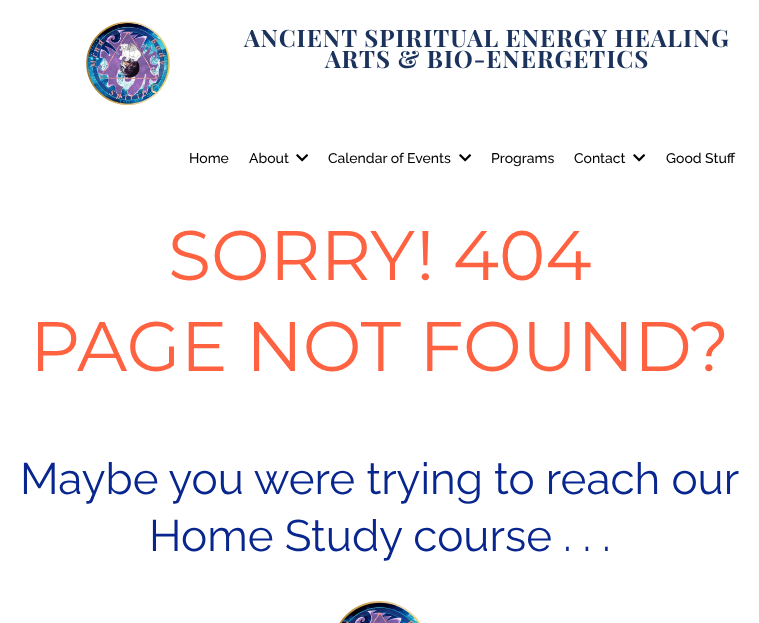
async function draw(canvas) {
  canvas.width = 759
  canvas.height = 623
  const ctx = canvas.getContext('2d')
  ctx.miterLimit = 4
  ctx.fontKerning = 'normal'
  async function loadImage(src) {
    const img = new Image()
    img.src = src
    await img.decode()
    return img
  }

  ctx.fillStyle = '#fff'
  ctx.fillRect(0, 0, 759, 623)
  ctx.drawImage(await loadImage('image0.png'), 86, 21, 84, 84)
  ctx.letterSpacing = '1px'
  ctx.font = 'bold 24px Playfair Display'
  ctx.fillStyle = '#1a325c'
  ctx.fillText('ANCIENT SPIRITUAL ENERGY HEALING', 244, 47)
  ctx.fillText('ARTS & BIO-ENERGETICS', 325, 68)
  ctx.letterSpacing = '0px'
  ctx.font = '500 14px Raleway'
  ctx.fillStyle = '#000'
  ctx.fillText('Home', 189, 163)
  ctx.fillText('About', 249, 163)
  ctx.drawImage(await loadImage('image1.png'), 296, 154, 12, 8)
  ctx.fillText('Calendar of Events', 328, 163)
  ctx.drawImage(await loadImage('image1.png'), 459, 154, 12, 8)
  ctx.fillText('Programs', 491, 163)
  ctx.fillText('Contact', 574, 163)
  ctx.drawImage(await loadImage('image1.png'), 633, 154, 12, 8)
  ctx.fillText('Good Stuff', 666, 163)
  ctx.font = '70px Montserrat'
  ctx.fillStyle = '#ff6240'
  ctx.fillText('SORRY! 404', 168, 280)
  ctx.fillText('PAGE NOT FOUND?', 30, 371)
  ctx.font = '44px Raleway'
  ctx.fillStyle = '#08268e'
  ctx.fillText('Maybe you were trying to reach our', 20, 494)
  ctx.fillText('Home Study course . . .', 149, 551)
  ctx.drawImage(await loadImage('image2.png'), 339, 601, 82, 22)
}

draw(document.querySelector('canvas'))
